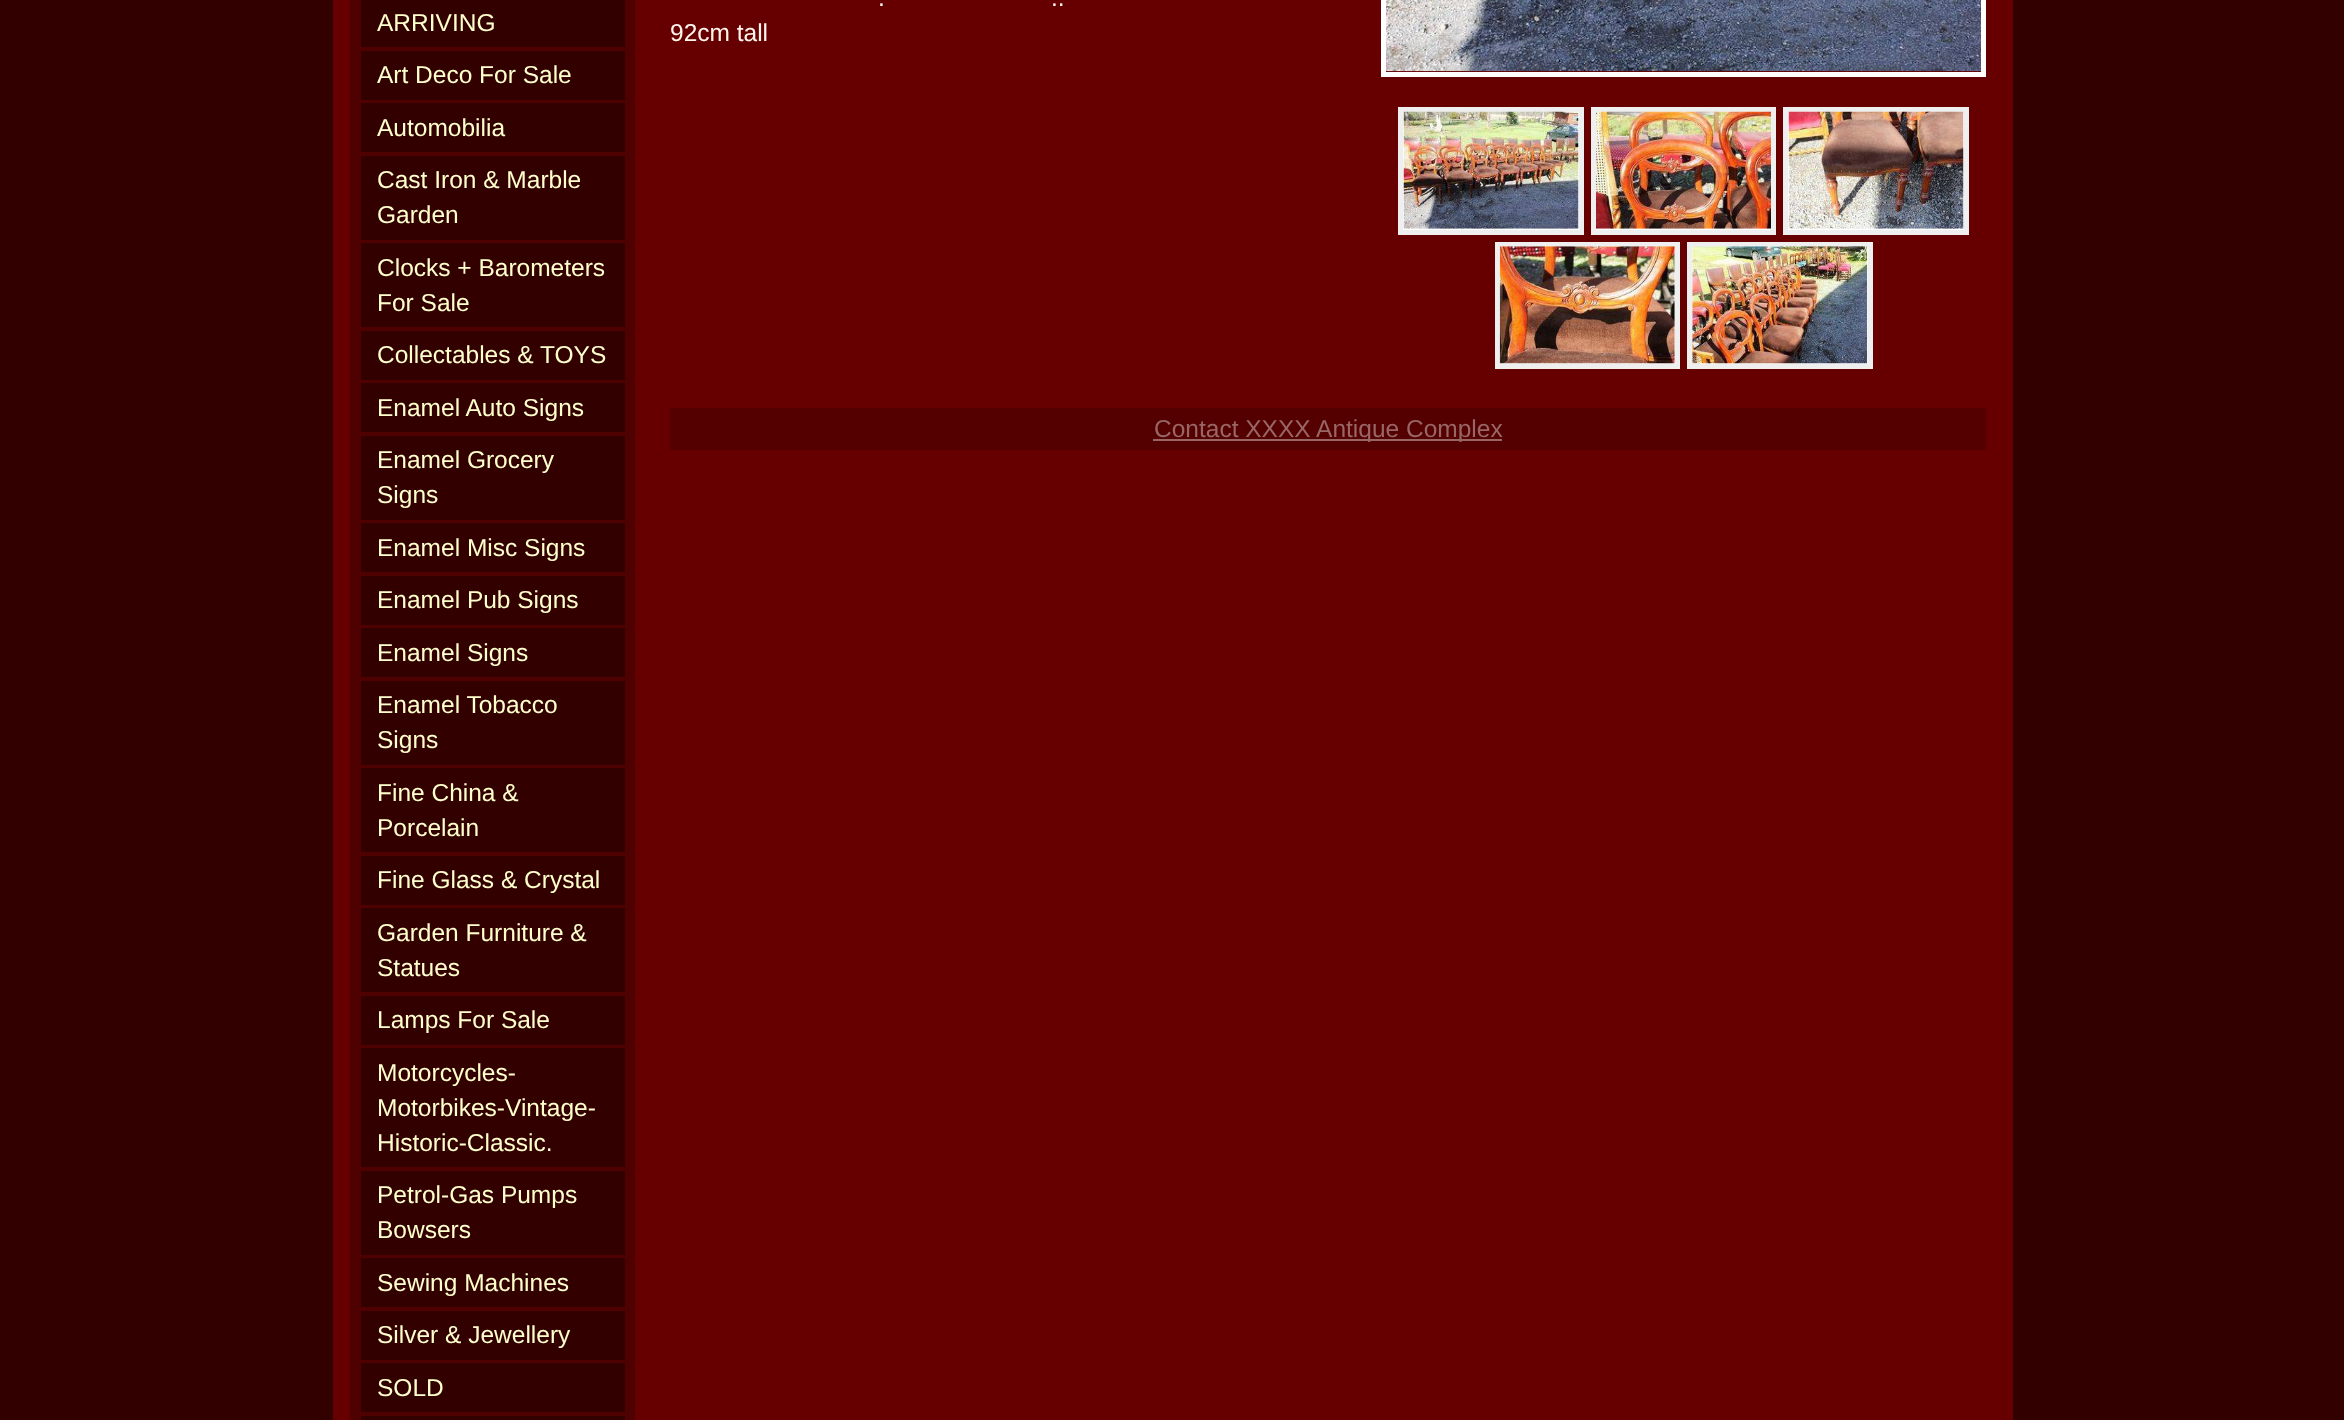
async function draw(canvas) {
  canvas.width = 2344
  canvas.height = 1420
  const ctx = canvas.getContext('2d')
  ctx.miterLimit = 4
  ctx.fontKerning = 'normal'
  async function loadImage(src) {
    const img = new Image()
    img.src = src
    await img.decode()
    return img
  }

  ctx.fillStyle = '#300'
  ctx.fillRect(0, 0, 2344, 1420)
  ctx.fillStyle = '#600'
  ctx.fillRect(333, 0, 1680, 1420)
  ctx.fillStyle = '#4f0000'
  ctx.fillRect(350, 0, 285, 1420)
  ctx.fillStyle = '#300'
  ctx.fillRect(361, 0, 264, 47)
  ctx.font = '24.5px Liberation Sans'
  ctx.fillStyle = '#ffc'
  ctx.fillText('ARRIVING', 377, 31)
  ctx.fillStyle = '#300'
  ctx.fillRect(361, 51, 264, 49)
  ctx.fillStyle = '#ffc'
  ctx.fillText('Art Deco For Sale', 377, 83)
  ctx.fillStyle = '#300'
  ctx.fillRect(361, 103, 264, 49)
  ctx.fillStyle = '#ffc'
  ctx.fillText('Automobilia', 377, 136)
  ctx.fillStyle = '#300'
  ctx.fillRect(361, 156, 264, 84)
  ctx.fillStyle = '#ffc'
  ctx.fillText('Cast Iron & Marble', 377, 188)
  ctx.fillText('Garden', 377, 223)
  ctx.fillStyle = '#300'
  ctx.fillRect(361, 243, 264, 84)
  ctx.fillStyle = '#ffc'
  ctx.fillText('Clocks + Barometers', 377, 276)
  ctx.fillText('For Sale', 377, 311)
  ctx.fillStyle = '#300'
  ctx.fillRect(361, 331, 264, 49)
  ctx.fillStyle = '#ffc'
  ctx.fillText('Collectables & TOYS', 377, 363)
  ctx.fillStyle = '#300'
  ctx.fillRect(361, 383, 264, 49)
  ctx.fillStyle = '#ffc'
  ctx.fillText('Enamel Auto Signs', 377, 416)
  ctx.fillStyle = '#300'
  ctx.fillRect(361, 436, 264, 84)
  ctx.fillStyle = '#ffc'
  ctx.fillText('Enamel Grocery', 377, 468)
  ctx.fillText('Signs', 377, 503)
  ctx.fillStyle = '#300'
  ctx.fillRect(361, 523, 264, 49)
  ctx.fillStyle = '#ffc'
  ctx.fillText('Enamel Misc Signs', 377, 556)
  ctx.fillStyle = '#300'
  ctx.fillRect(361, 576, 264, 49)
  ctx.fillStyle = '#ffc'
  ctx.fillText('Enamel Pub Signs', 377, 608)
  ctx.fillStyle = '#300'
  ctx.fillRect(361, 628, 264, 49)
  ctx.fillStyle = '#ffc'
  ctx.fillText('Enamel Signs', 377, 661)
  ctx.fillStyle = '#300'
  ctx.fillRect(361, 681, 264, 84)
  ctx.fillStyle = '#ffc'
  ctx.fillText('Enamel Tobacco', 377, 713)
  ctx.fillText('Signs', 377, 748)
  ctx.fillStyle = '#300'
  ctx.fillRect(361, 768, 264, 84)
  ctx.fillStyle = '#ffc'
  ctx.fillText('Fine China &', 377, 801)
  ctx.fillText('Porcelain', 377, 836)
  ctx.fillStyle = '#300'
  ctx.fillRect(361, 856, 264, 49)
  ctx.fillStyle = '#ffc'
  ctx.fillText('Fine Glass & Crystal', 377, 888)
  ctx.fillStyle = '#300'
  ctx.fillRect(361, 908, 264, 84)
  ctx.fillStyle = '#ffc'
  ctx.fillText('Garden Furniture &', 377, 941)
  ctx.fillText('Statues', 377, 976)
  ctx.fillStyle = '#300'
  ctx.fillRect(361, 996, 264, 49)
  ctx.fillStyle = '#ffc'
  ctx.fillText('Lamps For Sale', 377, 1028)
  ctx.fillStyle = '#300'
  ctx.fillRect(361, 1048, 264, 119)
  ctx.fillStyle = '#ffc'
  ctx.fillText('Motorcycles-', 377, 1081)
  ctx.fillText('Motorbikes-Vintage-', 377, 1116)
  ctx.fillText('Historic-Classic.', 377, 1151)
  ctx.fillStyle = '#300'
  ctx.fillRect(361, 1171, 264, 84)
  ctx.fillStyle = '#ffc'
  ctx.fillText('Petrol-Gas Pumps', 377, 1203)
  ctx.fillText('Bowsers', 377, 1238)
  ctx.fillStyle = '#300'
  ctx.fillRect(361, 1258, 264, 49)
  ctx.fillStyle = '#ffc'
  ctx.fillText('Sewing Machines', 377, 1291)
  ctx.fillStyle = '#300'
  ctx.fillRect(361, 1311, 264, 49)
  ctx.fillStyle = '#ffc'
  ctx.fillText('Silver & Jewellery', 377, 1343)
  ctx.fillStyle = '#300'
  ctx.fillRect(361, 1363, 264, 49)
  ctx.fillStyle = '#ffc'
  ctx.fillText('SOLD', 377, 1396)
  ctx.fillStyle = '#300'
  ctx.fillRect(361, 1416, 264, 4)
  ctx.fillStyle = '#fff5ee'
  ctx.fillText('.', 878, 6)
  ctx.fillText('..', 1051, 6)
  ctx.fillText('92cm tall', 670, 41)
  ctx.strokeStyle = '#fff'
  ctx.lineWidth = 5
  ctx.strokeRect(1383.5, -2.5, 600, 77)
  ctx.drawImage(await loadImage('image0.png'), 1386, 0, 595, 72)
  ctx.fillStyle = '#fff'
  ctx.beginPath()
  ctx.rect(1400.5, 109.5, 181, 123)
  ctx.fill()
  ctx.strokeStyle = '#efefef'
  ctx.stroke()
  ctx.drawImage(await loadImage('image1.png'), 1403, 111, 176, 118)
  ctx.fillRect(1596, 228, 175, 2)
  ctx.strokeRect(1593.5, 109.5, 180, 123)
  ctx.drawImage(await loadImage('image2.png'), 1596, 111, 175, 118)
  ctx.beginPath()
  ctx.rect(1785.5, 109.5, 181, 123)
  ctx.fill()
  ctx.stroke()
  ctx.drawImage(await loadImage('image3.png'), 1788, 111, 176, 118)
  ctx.beginPath()
  ctx.rect(1497.5, 244.5, 180, 122)
  ctx.fill()
  ctx.stroke()
  ctx.drawImage(await loadImage('image4.png'), 1499, 246, 176, 118)
  ctx.beginPath()
  ctx.rect(1689.5, 244.5, 181, 122)
  ctx.fill()
  ctx.stroke()
  ctx.drawImage(await loadImage('image5.png'), 1692, 246, 176, 118)
  ctx.fillStyle = '#500'
  ctx.fillRect(670, 408, 1316, 42)
  ctx.fillStyle = '#966'
  ctx.fillRect(1153, 439, 349, 2)
  ctx.fillText('Contact XXXX Antique Complex', 1154, 437)
}

draw(document.querySelector('canvas'))
